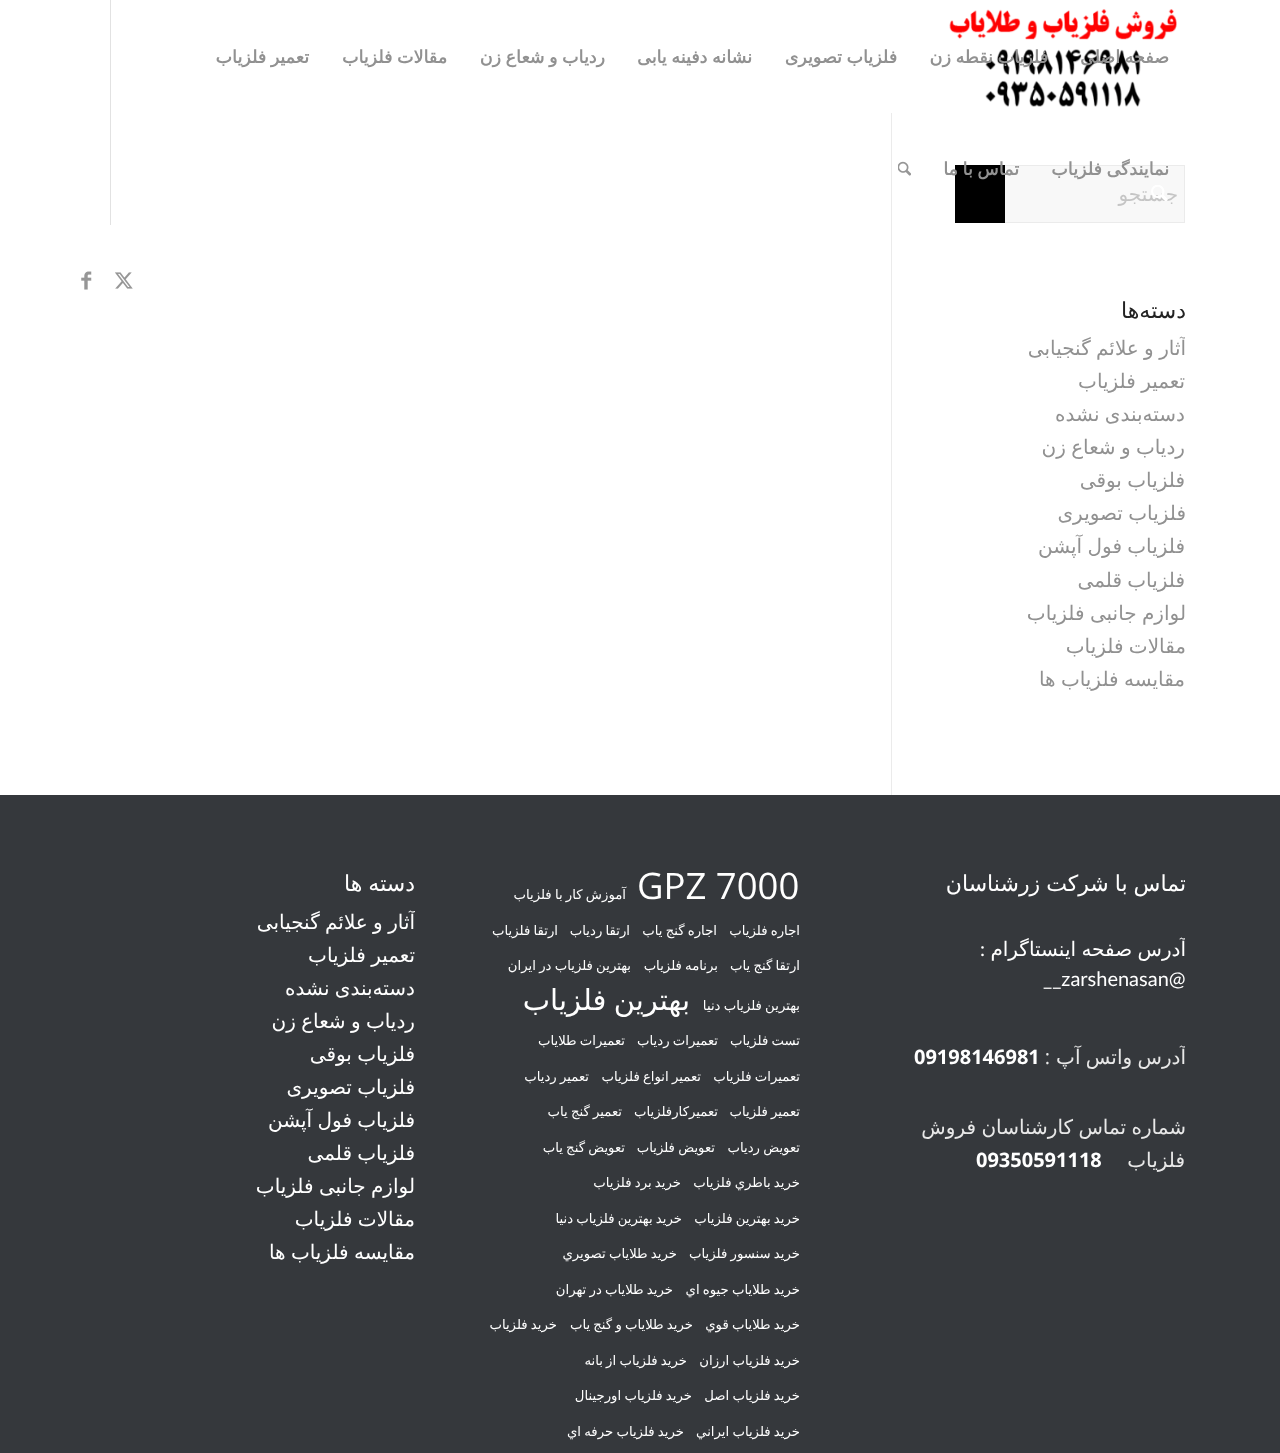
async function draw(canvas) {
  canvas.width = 1280
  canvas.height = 1453
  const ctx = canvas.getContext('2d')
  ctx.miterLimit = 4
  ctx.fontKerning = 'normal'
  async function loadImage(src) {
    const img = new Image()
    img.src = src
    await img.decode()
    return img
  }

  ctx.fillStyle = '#fff'
  ctx.fillRect(0, 0, 1280, 1453)
  ctx.drawImage(await loadImage('image0.png'), 949, 9, 228, 98)
  ctx.fillStyle = '#e2e2e2'
  ctx.fillRect(110, 0, 1, 225)
  ctx.wordSpacing = '-1px'
  ctx.direction = 'rtl'
  ctx.font = 'bold 17.5px DejaVu Sans'
  ctx.fillStyle = '#919191'
  ctx.fillText('صفحه اصلی', 1169, 63)
  ctx.fillText('فلزیاب نقطه زن', 1048, 63)
  ctx.fillText('فلزیاب تصویری', 897, 63)
  ctx.fillText('نشانه دفینه یابی', 752, 63)
  ctx.fillText('ردیاب و شعاع زن', 605, 63)
  ctx.fillText('مقالات فلزیاب', 447, 63)
  ctx.fillText('تعمیر فلزیاب', 309, 63)
  ctx.fillStyle = '#f8f8f8'
  ctx.fillRect(1005, 166, 179, 56)
  ctx.strokeStyle = '#ebebeb'
  ctx.strokeRect(955.5, 165.5, 229, 57)
  ctx.fillStyle = '#919191'
  ctx.fillText('نمایندگی فلزیاب', 1169, 175)
  ctx.fillStyle = '#000'
  ctx.fillRect(955, 165, 50, 58)
  ctx.fillStyle = '#919191'
  ctx.fillText('تماس با ما', 1019, 175)
  ctx.drawImage(await loadImage('image1.png'), 898, 161, 13, 15)
  ctx.drawImage(await loadImage('image2.png'), 115, 272, 18, 17)
  ctx.drawImage(await loadImage('image3.png'), 81, 271, 11, 19)
  ctx.fillStyle = '#ebebeb'
  ctx.fillRect(891, 113, 1, 682)
  ctx.wordSpacing = '0px'
  ctx.font = '20px DejaVu Sans'
  ctx.fillStyle = '#c5c5c5'
  ctx.fillText('جستجو', 1178, 201)
  ctx.drawImage(await loadImage('image4.png'), 1151, 185, 17, 16)
  ctx.font = '22px DejaVu Sans'
  ctx.fillStyle = '#222'
  ctx.fillText('دسته‌ها', 1186, 318)
  ctx.save()
  ctx.beginPath()
  ctx.rect(893, 103, 292, 692)
  ctx.clip()
  ctx.wordSpacing = '-1px'
  ctx.font = '20px DejaVu Sans'
  ctx.fillStyle = '#919191'
  ctx.fillText('آثار و علائم گنجیابی', 1186, 355)
  ctx.restore()
  ctx.wordSpacing = '-1px'
  ctx.font = '20px DejaVu Sans'
  ctx.fillStyle = '#919191'
  ctx.fillText('تعمیر فلزیاب', 1185, 388)
  ctx.save()
  ctx.beginPath()
  ctx.rect(893, 103, 292, 692)
  ctx.clip()
  ctx.fillText('دسته‌بندی نشده', 1185, 421)
  ctx.fillText('ردیاب و شعاع زن', 1185, 454)
  ctx.fillText('فلزیاب بوقی', 1185, 487)
  ctx.fillText('فلزیاب تصویری', 1186, 520)
  ctx.fillText('فلزیاب فول آپشن', 1185, 553)
  ctx.fillText('فلزیاب قلمی', 1185, 587)
  ctx.fillText('لوازم جانبی فلزیاب', 1186, 620)
  ctx.restore()
  ctx.fillText('مقالات فلزیاب', 1186, 653)
  ctx.save()
  ctx.beginPath()
  ctx.rect(893, 103, 292, 692)
  ctx.clip()
  ctx.fillText('مقایسه فلزیاب ها', 1185, 686)
  ctx.restore()
  ctx.fillStyle = '#35383c'
  ctx.fillRect(0, 795, 1280, 658)
  ctx.save()
  ctx.beginPath()
  ctx.rect(865, 853, 320, 361)
  ctx.clip()
  ctx.font = '22px DejaVu Sans'
  ctx.fillStyle = '#fff'
  ctx.fillText('تماس با شرکت زرشناسان', 1186, 891)
  ctx.restore()
  ctx.save()
  ctx.beginPath()
  ctx.rect(865, 933, 320, 70)
  ctx.clip()
  ctx.fillStyle = '#fff'
  ctx.fillText('آدرس صفحه اینستاگرام', 1186, 956)
  ctx.restore()
  ctx.wordSpacing = '0px'
  ctx.font = '20px Lato'
  ctx.fillStyle = '#fff'
  ctx.fillText(':', 985, 956)
  ctx.direction = 'ltr'
  ctx.fillText('__zarshenasan@', 1043, 986)
  ctx.save()
  ctx.beginPath()
  ctx.rect(865, 1040, 320, 34)
  ctx.clip()
  ctx.wordSpacing = '-1px'
  ctx.direction = 'rtl'
  ctx.font = '20px DejaVu Sans'
  ctx.fillStyle = '#e8e8e8'
  ctx.fillText('آدرس واتس آپ', 1186, 1064)
  ctx.restore()
  ctx.direction = 'rtl'
  ctx.font = '20px Open Sans'
  ctx.fillStyle = '#e8e8e8'
  ctx.fillText(':', 1050, 1064)
  ctx.direction = 'ltr'
  ctx.font = 'bold 20px Open Sans'
  ctx.fillStyle = '#fff'
  ctx.fillText('09198146981', 914, 1064)
  ctx.save()
  ctx.beginPath()
  ctx.rect(865, 1111, 320, 65)
  ctx.clip()
  ctx.wordSpacing = '-1px'
  ctx.direction = 'rtl'
  ctx.font = '20px DejaVu Sans'
  ctx.fillStyle = '#e8e8e8'
  ctx.fillText('شماره تماس کارشناسان فروش', 1186, 1134)
  ctx.restore()
  ctx.direction = 'rtl'
  ctx.font = '20px DejaVu Sans'
  ctx.fillStyle = '#e8e8e8'
  ctx.fillText('فلزیاب', 1185, 1167)
  ctx.direction = 'ltr'
  ctx.font = 'bold 20px Open Sans'
  ctx.fillStyle = '#fff'
  ctx.fillText('09350591118', 976, 1167)
  ctx.font = '36.5px Open Sans'
  ctx.fillText('GPZ 7000', 637, 899)
  ctx.wordSpacing = '-1px'
  ctx.direction = 'rtl'
  ctx.font = '13.25px DejaVu Sans'
  ctx.fillText('آموزش کار با فلزياب', 626, 899)
  ctx.fillText('اجاره فلزياب', 800, 935)
  ctx.fillText('اجاره گنج ياب', 717, 935)
  ctx.fillText('ارتقا ردياب', 630, 935)
  ctx.fillText('ارتقا فلزياب', 558, 935)
  ctx.save()
  ctx.beginPath()
  ctx.rect(480, 853, 320, 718)
  ctx.clip()
  ctx.fillText('ارتقا گنج ياب', 800, 970)
  ctx.restore()
  ctx.fillText('برنامه فلزياب', 718, 970)
  ctx.fillText('بهترين فلزياب در ايران', 631, 970)
  ctx.save()
  ctx.beginPath()
  ctx.rect(480, 853, 320, 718)
  ctx.clip()
  ctx.fillText('بهترين فلزياب دنيا', 800, 1010)
  ctx.restore()
  ctx.wordSpacing = '-2px'
  ctx.font = '29px DejaVu Sans'
  ctx.fillText('بهترین فلزیاب', 690, 1010)
  ctx.wordSpacing = '-1px'
  ctx.font = '13.25px DejaVu Sans'
  ctx.fillText('تست فلزياب', 800, 1045)
  ctx.fillText('تعميرات ردياب', 718, 1045)
  ctx.fillText('تعميرات طلاياب', 625, 1045)
  ctx.fillText('تعميرات فلزياب', 800, 1081)
  ctx.fillText('تعمير انواع فلزياب', 701, 1081)
  ctx.fillText('تعمير ردياب', 589, 1081)
  ctx.fillText('تعمير فلزياب', 800, 1116)
  ctx.wordSpacing = '0px'
  ctx.fillText('تعميرکارفلزياب', 718, 1116)
  ctx.wordSpacing = '-1px'
  ctx.fillText('تعمير گنج ياب', 622, 1116)
  ctx.fillText('تعويض ردياب', 800, 1152)
  ctx.fillText('تعويض فلزياب', 715, 1152)
  ctx.fillText('تعويض گنج ياب', 625, 1152)
  ctx.fillText('خريد باطري فلزياب', 800, 1187)
  ctx.fillText('خريد برد فلزياب', 681, 1187)
  ctx.fillText('خريد بهترين فلزياب', 800, 1223)
  ctx.fillText('خريد بهترين فلزياب دنيا', 682, 1223)
  ctx.fillText('خريد سنسور فلزياب', 800, 1258)
  ctx.fillText('خريد طلاياب تصويري', 677, 1258)
  ctx.save()
  ctx.beginPath()
  ctx.rect(480, 853, 320, 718)
  ctx.clip()
  ctx.fillText('خريد طلاياب جيوه اي', 800, 1294)
  ctx.restore()
  ctx.fillText('خريد طلاياب در تهران', 673, 1294)
  ctx.fillText('خريد طلاياب قوي', 800, 1329)
  ctx.fillText('خريد طلاياب و گنج ياب', 693, 1329)
  ctx.fillText('خريد فلزياب', 557, 1329)
  ctx.fillText('خريد فلزياب ارزان', 800, 1365)
  ctx.fillText('خريد فلزياب از بانه', 687, 1365)
  ctx.fillText('خريد فلزياب اصل', 800, 1400)
  ctx.fillText('خريد فلزياب اورجينال', 692, 1400)
  ctx.fillText('خريد فلزياب ايراني', 800, 1436)
  ctx.fillText('خريد فلزياب حرفه اي', 684, 1436)
  ctx.font = '22px DejaVu Sans'
  ctx.fillText('دسته ها', 415, 891)
  ctx.save()
  ctx.beginPath()
  ctx.rect(95, 853, 320, 416)
  ctx.clip()
  ctx.font = '20px DejaVu Sans'
  ctx.fillText('آثار و علائم گنجیابی', 415, 929)
  ctx.restore()
  ctx.font = '20px DejaVu Sans'
  ctx.fillText('تعمیر فلزیاب', 415, 962)
  ctx.fillText('دسته‌بندی نشده', 415, 995)
  ctx.save()
  ctx.beginPath()
  ctx.rect(95, 853, 320, 416)
  ctx.clip()
  ctx.fillText('ردیاب و شعاع زن', 415, 1028)
  ctx.restore()
  ctx.fillText('فلزیاب بوقی', 415, 1061)
  ctx.fillText('فلزیاب تصویری', 415, 1094)
  ctx.save()
  ctx.beginPath()
  ctx.rect(95, 853, 320, 416)
  ctx.clip()
  ctx.fillText('فلزیاب فول آپشن', 415, 1127)
  ctx.restore()
  ctx.fillText('فلزیاب قلمی', 415, 1160)
  ctx.fillText('لوازم جانبی فلزیاب', 415, 1193)
  ctx.fillText('مقالات فلزیاب', 415, 1226)
  ctx.save()
  ctx.beginPath()
  ctx.rect(95, 853, 320, 416)
  ctx.clip()
  ctx.fillText('مقایسه فلزیاب ها', 415, 1259)
  ctx.restore()
}

draw(document.querySelector('canvas'))
